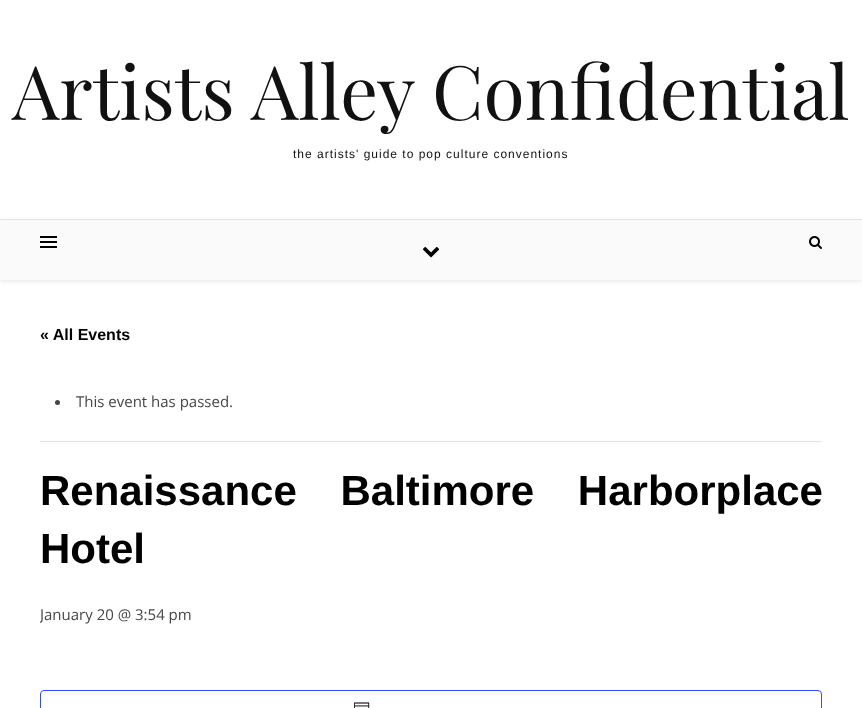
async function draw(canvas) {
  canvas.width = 862
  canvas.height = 708
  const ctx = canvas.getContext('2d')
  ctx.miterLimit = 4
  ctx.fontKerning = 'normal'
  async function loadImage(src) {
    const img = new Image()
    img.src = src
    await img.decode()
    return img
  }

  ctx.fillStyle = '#fff'
  ctx.fillRect(0, 0, 862, 708)
  ctx.fillStyle = '#ebebeb'
  ctx.fillRect(0, 219, 862, 1)
  ctx.font = '75px Playfair Display'
  ctx.fillStyle = '#111'
  ctx.fillText('Artists Alley Confidential', 12, 120)
  ctx.letterSpacing = '1px'
  ctx.font = '12px Liberation Sans'
  ctx.fillText('the artists\' guide to pop culture conventions', 293, 158)
  ctx.fillStyle = '#0000001a'
  ctx.filter = 'blur(2.5px)'
  ctx.beginPath()
  ctx.rect(0, 221, 862, 60)
  ctx.fill()
  ctx.filter = 'none'
  ctx.fillStyle = '#fafafa'
  ctx.fillRect(0, 220, 862, 60)
  ctx.fillStyle = '#000'
  ctx.fillRect(40, 236, 17, 2)
  ctx.fillRect(40, 241, 17, 2)
  ctx.fillRect(40, 246, 17, 2)
  ctx.drawImage(await loadImage('image0.png'), 809, 236, 13, 13)
  ctx.drawImage(await loadImage('image1.png'), 422, 247, 18, 11)
  ctx.letterSpacing = '0px'
  ctx.font = 'bold 16px Liberation Sans'
  ctx.fillText('« All Events', 40, 340)
  ctx.fillStyle = '#e4e4e4'
  ctx.fillRect(40, 441, 782, 1)
  ctx.fillStyle = '#464646'
  ctx.beginPath()
  ctx.arc(57.5, 402.5, 2.5, 0, 2 * Math.PI)
  ctx.fill()
  ctx.font = '15px Open Sans'
  ctx.fillText('This event has passed.', 76, 407)
  ctx.wordSpacing = '32px'
  ctx.font = 'bold 42px Liberation Sans'
  ctx.fillStyle = '#000'
  ctx.fillText('Renaissance Baltimore Harborplace', 40, 505)
  ctx.wordSpacing = '0px'
  ctx.fillText('Hotel', 40, 563)
  ctx.save()
  ctx.beginPath()
  ctx.rect(40, 320, 782, 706)
  ctx.clip()
  ctx.font = '15px Open Sans'
  ctx.fillStyle = '#464646'
  ctx.fillText('January 20 @ 3:54 pm', 40, 620)
  ctx.restore()
  ctx.beginPath()
  ctx.roundRect(40.5, 690.5, 781, 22, 3.5)
  ctx.strokeStyle = '#334aff'
  ctx.stroke()
  ctx.drawImage(await loadImage('image2.png'), 354, 702, 16, 6)
}

draw(document.querySelector('canvas'))
